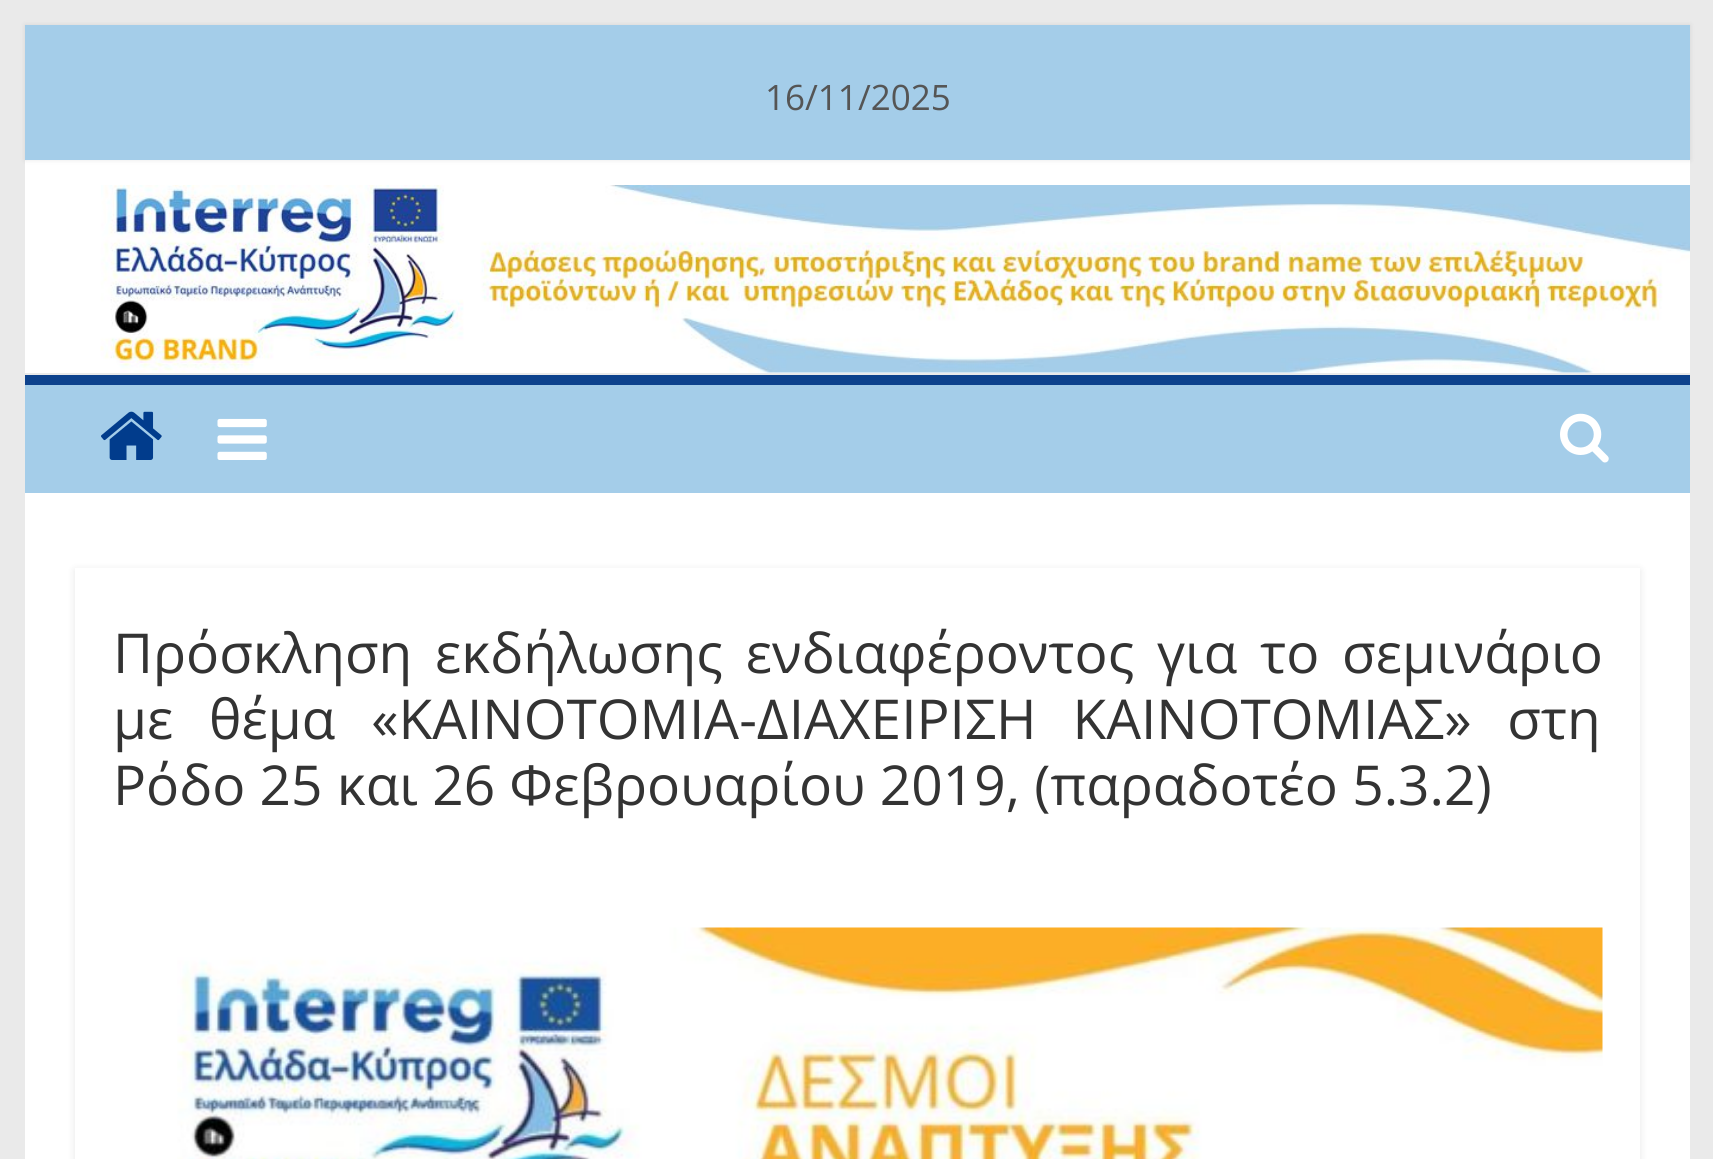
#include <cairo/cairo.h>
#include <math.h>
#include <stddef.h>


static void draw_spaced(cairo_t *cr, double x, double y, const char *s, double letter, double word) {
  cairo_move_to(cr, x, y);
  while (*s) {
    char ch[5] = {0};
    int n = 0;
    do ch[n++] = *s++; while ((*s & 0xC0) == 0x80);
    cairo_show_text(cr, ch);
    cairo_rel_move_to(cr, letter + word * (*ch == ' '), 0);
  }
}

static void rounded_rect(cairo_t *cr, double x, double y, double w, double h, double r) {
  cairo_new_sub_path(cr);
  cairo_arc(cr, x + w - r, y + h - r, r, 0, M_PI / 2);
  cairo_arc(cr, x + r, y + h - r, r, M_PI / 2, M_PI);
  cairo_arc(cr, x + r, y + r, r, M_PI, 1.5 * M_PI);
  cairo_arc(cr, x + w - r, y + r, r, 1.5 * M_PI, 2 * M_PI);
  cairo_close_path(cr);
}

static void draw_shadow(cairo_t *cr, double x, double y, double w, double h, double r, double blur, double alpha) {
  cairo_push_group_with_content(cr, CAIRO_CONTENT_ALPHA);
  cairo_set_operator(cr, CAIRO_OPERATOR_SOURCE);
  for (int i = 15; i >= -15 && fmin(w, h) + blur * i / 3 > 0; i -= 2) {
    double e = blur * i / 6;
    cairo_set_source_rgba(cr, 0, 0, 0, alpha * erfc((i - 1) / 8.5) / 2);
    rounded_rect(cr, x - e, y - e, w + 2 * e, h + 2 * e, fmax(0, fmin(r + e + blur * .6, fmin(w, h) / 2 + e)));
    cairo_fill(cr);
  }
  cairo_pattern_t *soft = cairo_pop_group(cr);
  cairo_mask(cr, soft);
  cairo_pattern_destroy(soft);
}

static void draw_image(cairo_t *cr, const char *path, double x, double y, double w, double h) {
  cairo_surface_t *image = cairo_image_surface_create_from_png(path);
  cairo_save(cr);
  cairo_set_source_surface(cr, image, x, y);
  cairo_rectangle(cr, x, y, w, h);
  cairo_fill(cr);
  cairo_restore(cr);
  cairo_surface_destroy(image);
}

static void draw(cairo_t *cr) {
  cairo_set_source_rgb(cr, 234 / 255.0, 234 / 255.0, 234 / 255.0);
  cairo_paint(cr);
  cairo_set_source_rgb(cr, 1, 1, 1);
  cairo_rectangle(cr, 25, 160, 1665, 213);
  cairo_fill(cr);
  cairo_set_source_rgb(cr, 0, 0, 0);
  draw_shadow(cr, 25, 25, 1665, 135, 0, 2.5, 0.1);
  cairo_set_source_rgb(cr, 164 / 255.0, 205 / 255.0, 233 / 255.0);
  cairo_rectangle(cr, 25, 25, 1665, 135);
  cairo_fill(cr);
  draw_image(cr, "images/1.png", 100, 185, 1590, 188);
  cairo_rectangle(cr, 25, 385, 1665, 108);
  cairo_fill(cr);
  cairo_set_source_rgb(cr, 13 / 255.0, 66 / 255.0, 141 / 255.0);
  cairo_rectangle(cr, 25, 375, 1665, 10);
  cairo_fill(cr);
  draw_image(cr, "images/2.png", 101, 411, 61, 49);
  draw_image(cr, "images/3.png", 217, 418, 50, 42);
  draw_image(cr, "images/4.png", 1560, 413, 49, 50);
  cairo_set_source_rgb(cr, 1, 1, 1);
  cairo_rectangle(cr, 25, 493, 1665, 666);
  cairo_fill(cr);
  cairo_save(cr);
  cairo_set_fill_rule(cr, CAIRO_FILL_RULE_EVEN_ODD);
  cairo_new_path(cr);
  cairo_move_to(cr, 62, 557);
  cairo_line_to(cr, 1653, 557);
  cairo_line_to(cr, 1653, 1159);
  cairo_line_to(cr, 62, 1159);
  cairo_close_path(cr);
  cairo_move_to(cr, 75, 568);
  cairo_line_to(cr, 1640, 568);
  cairo_line_to(cr, 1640, 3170);
  cairo_line_to(cr, 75, 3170);
  cairo_close_path(cr);
  cairo_clip(cr);
  cairo_set_source_rgb(cr, 0, 0, 0);
  draw_shadow(cr, 75, 570, 1565, 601, 0, 4, 0.1);
  cairo_restore(cr);
  draw_image(cr, "images/5.png", 177, 927, 1426, 232);
  cairo_select_font_face(cr, "Open Sans", CAIRO_FONT_SLANT_NORMAL, CAIRO_FONT_WEIGHT_NORMAL);
  cairo_set_font_size(cr, 35);
  cairo_set_source_rgb(cr, 85 / 255.0, 85 / 255.0, 85 / 255.0);
  cairo_move_to(cr, 765, 110);
  cairo_show_text(cr, "16/11/2025");
  cairo_set_font_size(cr, 55);
  cairo_set_source_rgb(cr, 51 / 255.0, 51 / 255.0, 51 / 255.0);
  draw_spaced(cr, 113, 673, "Πρόσκληση εκδήλωσης ενδιαφέροντος για τo σεμινάριο", 0, 8.5);
  draw_spaced(cr, 113, 739, "με θέμα «ΚΑΙΝΟΤΟΜΙΑ-ΔΙΑΧΕΙΡΙΣΗ ΚΑΙΝΟΤΟΜΙΑΣ» στη", 0, 21.5);
  cairo_move_to(cr, 113, 805);
  cairo_show_text(cr, "Ρόδο 25 και 26 Φεβρουαρίου 2019, (παραδοτέο 5.3.2)");
}

int main(void) {
  cairo_surface_t *surface = cairo_image_surface_create(CAIRO_FORMAT_RGB24, 1713, 1159);
  cairo_t *cr = cairo_create(surface);
  cairo_font_options_t *options = cairo_font_options_create();
  cairo_font_options_set_hint_metrics(options, CAIRO_HINT_METRICS_OFF);
  cairo_font_options_set_hint_style(options, CAIRO_HINT_STYLE_NONE);
  cairo_set_font_options(cr, options);
  cairo_set_miter_limit(cr, 4);
  draw(cr);
  cairo_surface_write_to_png(surface, "out.png");
  cairo_font_options_destroy(options);
  cairo_destroy(cr);
  cairo_surface_destroy(surface);
  return 0;
}
